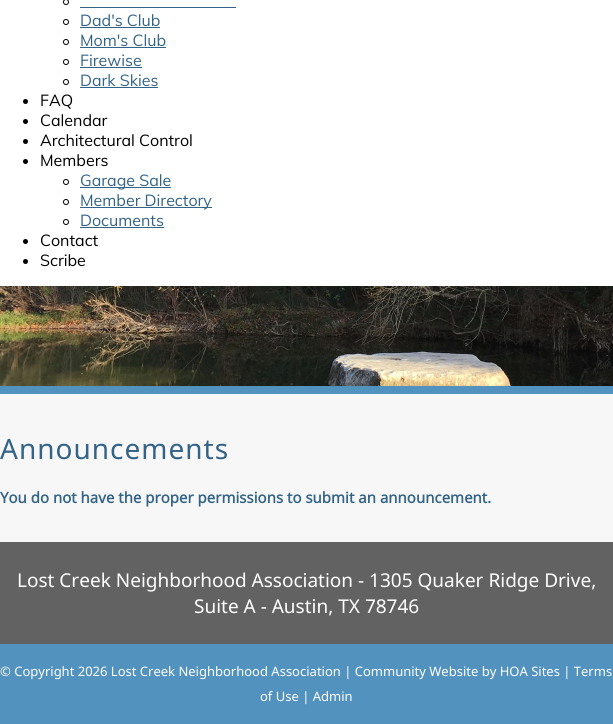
#include <cairo/cairo.h>
#include <math.h>
#include <stddef.h>


static void draw_spaced(cairo_t *cr, double x, double y, const char *s, double letter, double word) {
  cairo_move_to(cr, x, y);
  while (*s) {
    char ch[5] = {0};
    int n = 0;
    do ch[n++] = *s++; while ((*s & 0xC0) == 0x80);
    cairo_show_text(cr, ch);
    cairo_rel_move_to(cr, letter + word * (*ch == ' '), 0);
  }
}

static void draw_image(cairo_t *cr, const char *path, double x, double y, double w, double h) {
  cairo_surface_t *image = cairo_image_surface_create_from_png(path);
  cairo_save(cr);
  cairo_set_source_surface(cr, image, x, y);
  cairo_rectangle(cr, x, y, w, h);
  cairo_fill(cr);
  cairo_restore(cr);
  cairo_surface_destroy(image);
}

static void draw(cairo_t *cr) {
  cairo_set_source_rgb(cr, 1, 1, 1);
  cairo_paint(cr);
  cairo_arc(cr, 66, 2, 2.5, 0, 2 * M_PI);
  cairo_set_source_rgb(cr, 0, 0, 0);
  cairo_set_line_width(cr, 1);
  cairo_stroke(cr);
  cairo_set_source_rgb(cr, 51 / 255.0, 100 / 255.0, 136 / 255.0);
  cairo_rectangle(cr, 80, 7, 156, 1);
  cairo_fill(cr);
  cairo_arc(cr, 66, 22, 2.5, 0, 2 * M_PI);
  cairo_set_source_rgb(cr, 0, 0, 0);
  cairo_stroke(cr);
  cairo_set_source_rgb(cr, 51 / 255.0, 100 / 255.0, 136 / 255.0);
  cairo_rectangle(cr, 80, 27, 80, 1);
  cairo_fill(cr);
  cairo_arc(cr, 66, 42, 2.5, 0, 2 * M_PI);
  cairo_set_source_rgb(cr, 0, 0, 0);
  cairo_stroke(cr);
  cairo_set_source_rgb(cr, 51 / 255.0, 100 / 255.0, 136 / 255.0);
  cairo_rectangle(cr, 80, 47, 86, 1);
  cairo_fill(cr);
  cairo_arc(cr, 66, 62, 2.5, 0, 2 * M_PI);
  cairo_set_source_rgb(cr, 0, 0, 0);
  cairo_stroke(cr);
  cairo_set_source_rgb(cr, 51 / 255.0, 100 / 255.0, 136 / 255.0);
  cairo_rectangle(cr, 80, 67, 62, 1);
  cairo_fill(cr);
  cairo_arc(cr, 66, 82, 2.5, 0, 2 * M_PI);
  cairo_set_source_rgb(cr, 0, 0, 0);
  cairo_stroke(cr);
  cairo_set_source_rgb(cr, 51 / 255.0, 100 / 255.0, 136 / 255.0);
  cairo_rectangle(cr, 80, 87, 78, 1);
  cairo_fill(cr);
  cairo_set_source_rgb(cr, 0, 0, 0);
  cairo_arc(cr, 25.5, 101.5, 2.5, 0, 2 * M_PI);
  cairo_fill(cr);
  cairo_arc(cr, 25.5, 121.5, 2.5, 0, 2 * M_PI);
  cairo_fill(cr);
  cairo_arc(cr, 25.5, 141.5, 2.5, 0, 2 * M_PI);
  cairo_fill(cr);
  cairo_arc(cr, 25.5, 161.5, 2.5, 0, 2 * M_PI);
  cairo_fill(cr);
  cairo_arc(cr, 66, 182, 2.5, 0, 2 * M_PI);
  cairo_stroke(cr);
  cairo_set_source_rgb(cr, 51 / 255.0, 100 / 255.0, 136 / 255.0);
  cairo_rectangle(cr, 80, 187, 91, 1);
  cairo_fill(cr);
  cairo_arc(cr, 66, 202, 2.5, 0, 2 * M_PI);
  cairo_set_source_rgb(cr, 0, 0, 0);
  cairo_stroke(cr);
  cairo_set_source_rgb(cr, 51 / 255.0, 100 / 255.0, 136 / 255.0);
  cairo_rectangle(cr, 80, 207, 132, 1);
  cairo_fill(cr);
  cairo_arc(cr, 66, 222, 2.5, 0, 2 * M_PI);
  cairo_set_source_rgb(cr, 0, 0, 0);
  cairo_stroke(cr);
  cairo_set_source_rgb(cr, 51 / 255.0, 100 / 255.0, 136 / 255.0);
  cairo_rectangle(cr, 80, 227, 84, 1);
  cairo_fill(cr);
  cairo_set_source_rgb(cr, 0, 0, 0);
  cairo_arc(cr, 25.5, 241.5, 2.5, 0, 2 * M_PI);
  cairo_fill(cr);
  cairo_arc(cr, 25.5, 261.5, 2.5, 0, 2 * M_PI);
  cairo_fill(cr);
  cairo_set_source_rgb(cr, 82 / 255.0, 146 / 255.0, 191 / 255.0);
  cairo_rectangle(cr, 0, 386, 613, 8);
  cairo_fill(cr);
  draw_image(cr, "images/1.png", 0, 286, 613, 100);
  cairo_set_source_rgb(cr, 247 / 255.0, 247 / 255.0, 247 / 255.0);
  cairo_rectangle(cr, 0, 394, 613, 148);
  cairo_fill(cr);
  cairo_set_source_rgb(cr, 98 / 255.0, 98 / 255.0, 98 / 255.0);
  cairo_rectangle(cr, 0, 542, 613, 102);
  cairo_fill(cr);
  cairo_set_source_rgb(cr, 82 / 255.0, 146 / 255.0, 191 / 255.0);
  cairo_rectangle(cr, 0, 644, 613, 80);
  cairo_fill(cr);
  cairo_select_font_face(cr, "Muli", CAIRO_FONT_SLANT_NORMAL, CAIRO_FONT_WEIGHT_NORMAL);
  cairo_set_font_size(cr, 16);
  cairo_set_source_rgb(cr, 51 / 255.0, 100 / 255.0, 136 / 255.0);
  cairo_move_to(cr, 80, 26);
  cairo_show_text(cr, "Dad's Club");
  cairo_move_to(cr, 80, 46);
  cairo_show_text(cr, "Mom's Club");
  cairo_move_to(cr, 80, 66);
  cairo_show_text(cr, "Firewise");
  cairo_move_to(cr, 80, 86);
  cairo_show_text(cr, "Dark Skies");
  cairo_set_source_rgb(cr, 0, 0, 0);
  cairo_move_to(cr, 40, 106);
  cairo_show_text(cr, "FAQ");
  cairo_move_to(cr, 40, 126);
  cairo_show_text(cr, "Calendar");
  cairo_move_to(cr, 40, 146);
  cairo_show_text(cr, "Architectural Control");
  cairo_move_to(cr, 40, 166);
  cairo_show_text(cr, "Members");
  cairo_set_source_rgb(cr, 51 / 255.0, 100 / 255.0, 136 / 255.0);
  cairo_move_to(cr, 80, 186);
  cairo_show_text(cr, "Garage Sale");
  cairo_move_to(cr, 80, 206);
  cairo_show_text(cr, "Member Directory");
  cairo_move_to(cr, 80, 226);
  cairo_show_text(cr, "Documents");
  cairo_set_source_rgb(cr, 0, 0, 0);
  cairo_move_to(cr, 40, 246);
  cairo_show_text(cr, "Contact");
  cairo_move_to(cr, 40, 266);
  cairo_show_text(cr, "Scribe");
  cairo_select_font_face(cr, "Noto Sans", CAIRO_FONT_SLANT_NORMAL, CAIRO_FONT_WEIGHT_NORMAL);
  cairo_set_font_size(cr, 28);
  cairo_set_source_rgb(cr, 51 / 255.0, 100 / 255.0, 136 / 255.0);
  draw_spaced(cr, 0, 459, "Announcements", 1, 0);
  cairo_select_font_face(cr, "Noto Sans", CAIRO_FONT_SLANT_NORMAL, CAIRO_FONT_WEIGHT_BOLD);
  cairo_set_font_size(cr, 15);
  cairo_move_to(cr, 0, 503);
  cairo_show_text(cr, "You do not have the proper permissions to submit an announcement.");
  cairo_select_font_face(cr, "Noto Sans", CAIRO_FONT_SLANT_NORMAL, CAIRO_FONT_WEIGHT_NORMAL);
  cairo_set_font_size(cr, 19);
  cairo_set_source_rgb(cr, 1, 1, 1);
  cairo_move_to(cr, 17, 587);
  cairo_show_text(cr, "Lost Creek Neighborhood Association - 1305 Quaker Ridge Drive,");
  cairo_move_to(cr, 194, 613);
  cairo_show_text(cr, "Suite A - Austin, TX 78746");
  cairo_set_font_size(cr, 13);
  cairo_move_to(cr, 0, 676);
  cairo_show_text(cr, "© Copyright 2026 Lost Creek Neighborhood Association | Community Website by HOA Sites | Terms");
  cairo_move_to(cr, 260, 701);
  cairo_show_text(cr, "of Use | Admin");
}

int main(void) {
  cairo_surface_t *surface = cairo_image_surface_create(CAIRO_FORMAT_RGB24, 613, 724);
  cairo_t *cr = cairo_create(surface);
  cairo_font_options_t *options = cairo_font_options_create();
  cairo_font_options_set_hint_metrics(options, CAIRO_HINT_METRICS_OFF);
  cairo_font_options_set_hint_style(options, CAIRO_HINT_STYLE_NONE);
  cairo_set_font_options(cr, options);
  cairo_set_miter_limit(cr, 4);
  draw(cr);
  cairo_surface_write_to_png(surface, "out.png");
  cairo_font_options_destroy(options);
  cairo_destroy(cr);
  cairo_surface_destroy(surface);
  return 0;
}
